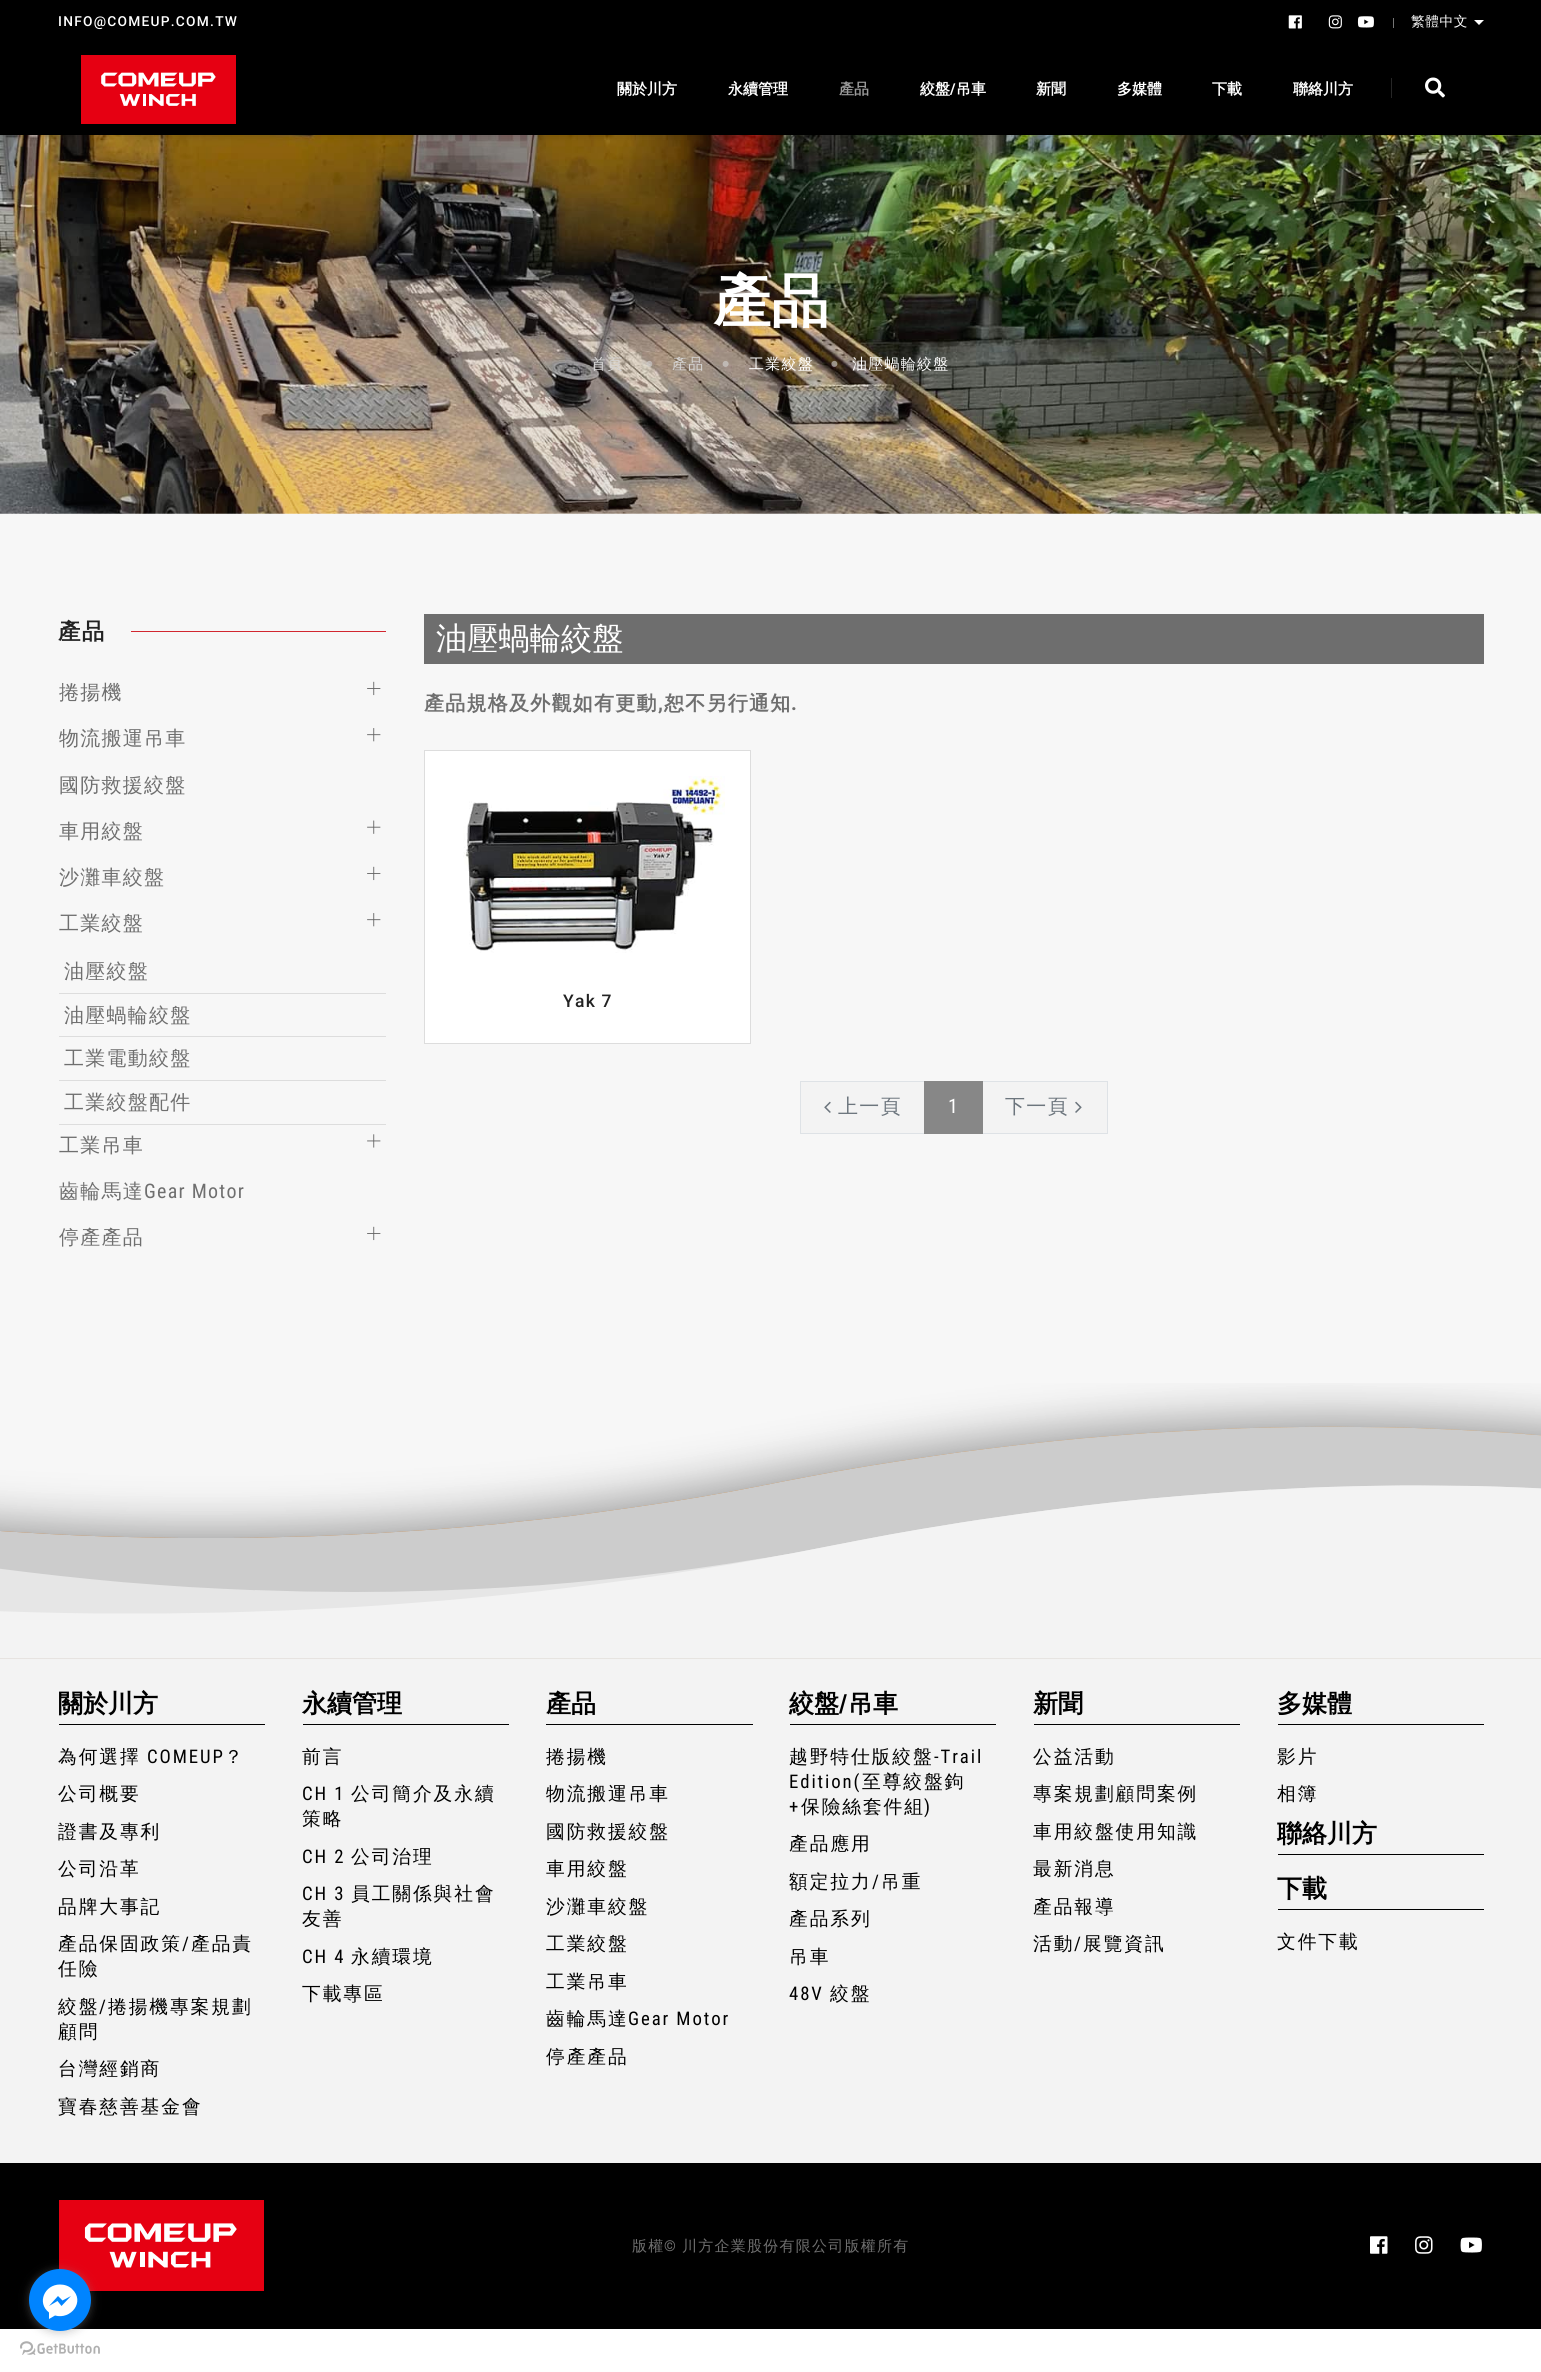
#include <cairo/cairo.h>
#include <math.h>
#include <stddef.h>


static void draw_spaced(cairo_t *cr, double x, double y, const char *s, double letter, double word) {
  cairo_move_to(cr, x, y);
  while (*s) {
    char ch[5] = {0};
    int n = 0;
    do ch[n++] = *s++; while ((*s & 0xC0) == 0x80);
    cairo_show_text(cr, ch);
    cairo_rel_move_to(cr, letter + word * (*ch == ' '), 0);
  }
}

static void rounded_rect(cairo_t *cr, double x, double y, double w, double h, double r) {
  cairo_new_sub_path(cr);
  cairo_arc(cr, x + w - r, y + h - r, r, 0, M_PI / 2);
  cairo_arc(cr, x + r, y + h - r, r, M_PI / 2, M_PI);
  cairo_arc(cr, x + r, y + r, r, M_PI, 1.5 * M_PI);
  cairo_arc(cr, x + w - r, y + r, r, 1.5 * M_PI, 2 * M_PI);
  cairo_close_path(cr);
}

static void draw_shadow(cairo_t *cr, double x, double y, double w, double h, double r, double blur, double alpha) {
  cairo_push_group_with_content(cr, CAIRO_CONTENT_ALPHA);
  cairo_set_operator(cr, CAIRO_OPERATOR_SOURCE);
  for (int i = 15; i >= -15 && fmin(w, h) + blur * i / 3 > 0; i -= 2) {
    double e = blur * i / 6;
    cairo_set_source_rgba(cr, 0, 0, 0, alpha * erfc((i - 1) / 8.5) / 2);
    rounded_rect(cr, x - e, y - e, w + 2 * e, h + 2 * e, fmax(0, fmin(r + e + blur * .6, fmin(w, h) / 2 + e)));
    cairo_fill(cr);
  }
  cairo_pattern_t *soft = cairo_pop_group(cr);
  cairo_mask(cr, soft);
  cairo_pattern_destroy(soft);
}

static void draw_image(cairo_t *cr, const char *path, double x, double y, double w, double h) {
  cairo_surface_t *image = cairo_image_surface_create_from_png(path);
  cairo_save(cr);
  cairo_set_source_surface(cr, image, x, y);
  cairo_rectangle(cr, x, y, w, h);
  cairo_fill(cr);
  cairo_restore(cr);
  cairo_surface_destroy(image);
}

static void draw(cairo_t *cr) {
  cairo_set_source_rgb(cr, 1, 1, 1);
  cairo_paint(cr);
  draw_image(cr, "images/6.png", 0, 135, 1541, 379);
  cairo_set_source_rgb(cr, 0, 0, 0);
  draw_shadow(cr, 13, 61, 1516, 67, 0, 6, 0.6);
  cairo_set_source_rgb(cr, 0, 0, 0);
  cairo_rectangle(cr, 0, 0, 1541, 135);
  cairo_fill(cr);
  draw_image(cr, "images/1.png", 1288, 15, 14, 14);
  draw_image(cr, "images/2.png", 1328, 15, 14, 14);
  draw_image(cr, "images/3.png", 1357, 16, 17, 12);
  cairo_set_source_rgb(cr, 117 / 255.0, 117 / 255.0, 117 / 255.0);
  cairo_rectangle(cr, 1393, 18, 1, 10);
  cairo_fill(cr);
  cairo_set_source_rgb(cr, 1, 1, 1);
  cairo_new_path(cr);
  cairo_move_to(cr, 1474, 20);
  cairo_line_to(cr, 1484, 20);
  cairo_line_to(cr, 1479, 25);
  cairo_close_path(cr);
  cairo_fill(cr);
  draw_image(cr, "images/4.png", 81, 55, 155, 69);
  cairo_set_source_rgb(cr, 38 / 255.0, 38 / 255.0, 38 / 255.0);
  cairo_rectangle(cr, 1391, 78, 1, 20);
  cairo_fill(cr);
  draw_image(cr, "images/5.png", 1425, 77, 20, 21);
  draw_image(cr, "images/7.png", 646, 361, 7, 6);
  draw_image(cr, "images/8.png", 722, 361, 7, 6);
  draw_image(cr, "images/9.png", 831, 360, 7, 7);
  cairo_set_source_rgb(cr, 247 / 255.0, 247 / 255.0, 247 / 255.0);
  cairo_rectangle(cr, 0, 514, 1541, 1024);
  cairo_fill(cr);
  cairo_set_source_rgb(cr, 210 / 255.0, 39 / 255.0, 48 / 255.0);
  cairo_rectangle(cr, 131, 631, 255, 1);
  cairo_fill(cr);
  draw_image(cr, "images/10.png", 367, 681, 14, 15);
  draw_image(cr, "images/11.png", 367, 728, 14, 14);
  draw_image(cr, "images/12.png", 367, 820, 14, 14);
  draw_image(cr, "images/10.png", 367, 866, 14, 15);
  draw_image(cr, "images/11.png", 367, 913, 14, 14);
  cairo_set_source_rgb(cr, 221 / 255.0, 221 / 255.0, 221 / 255.0);
  cairo_rectangle(cr, 59, 993, 327, 1);
  cairo_fill(cr);
  cairo_rectangle(cr, 59, 1036, 327, 1);
  cairo_fill(cr);
  cairo_rectangle(cr, 59, 1080, 327, 1);
  cairo_fill(cr);
  cairo_rectangle(cr, 59, 1124, 327, 1);
  cairo_fill(cr);
  draw_image(cr, "images/13.png", 367, 1134, 14, 14);
  draw_image(cr, "images/10.png", 367, 1226, 14, 15);
  cairo_set_source_rgb(cr, 110 / 255.0, 110 / 255.0, 110 / 255.0);
  cairo_rectangle(cr, 424, 614, 1060, 50);
  cairo_fill(cr);
  cairo_set_source_rgb(cr, 1, 1, 1);
  cairo_rectangle(cr, 424.5, 750.5, 326, 293);
  cairo_fill_preserve(cr);
  cairo_set_source_rgb(cr, 221 / 255.0, 221 / 255.0, 221 / 255.0);
  cairo_set_line_width(cr, 1);
  cairo_stroke(cr);
  draw_image(cr, "images/14.png", 463, 776, 262, 177);
  cairo_set_source_rgb(cr, 243 / 255.0, 243 / 255.0, 243 / 255.0);
  cairo_rectangle(cr, 800.5, 1081.5, 124, 52);
  cairo_fill_preserve(cr);
  cairo_set_source_rgb(cr, 222 / 255.0, 226 / 255.0, 230 / 255.0);
  cairo_stroke(cr);
  draw_image(cr, "images/15.png", 824, 1101, 7, 12);
  cairo_set_source_rgb(cr, 243 / 255.0, 243 / 255.0, 243 / 255.0);
  cairo_rectangle(cr, 983, 1082, 124, 51);
  cairo_fill(cr);
  cairo_rectangle(cr, 981.5, 1081.5, 126, 52);
  cairo_set_source_rgb(cr, 222 / 255.0, 226 / 255.0, 230 / 255.0);
  cairo_stroke(cr);
  cairo_set_source_rgb(cr, 135 / 255.0, 135 / 255.0, 135 / 255.0);
  cairo_rectangle(cr, 924, 1081, 59, 53);
  cairo_fill(cr);
  draw_image(cr, "images/16.png", 1075, 1101, 7, 12);
  cairo_set_source_rgb(cr, 243 / 255.0, 243 / 255.0, 243 / 255.0);
  cairo_rectangle(cr, 0, 1658, 1541, 505);
  cairo_fill(cr);
  draw_image(cr, "images/17.png", 0, 1383, 1541, 276);
  cairo_set_source_rgb(cr, 0, 0, 0);
  cairo_rectangle(cr, 59, 1724, 206, 1);
  cairo_fill(cr);
  cairo_rectangle(cr, 303, 1724, 206, 1);
  cairo_fill(cr);
  cairo_rectangle(cr, 546, 1724, 207, 1);
  cairo_fill(cr);
  cairo_rectangle(cr, 790, 1724, 206, 1);
  cairo_fill(cr);
  cairo_rectangle(cr, 1034, 1724, 206, 1);
  cairo_fill(cr);
  cairo_rectangle(cr, 1278, 1724, 206, 1);
  cairo_fill(cr);
  cairo_rectangle(cr, 1278, 1854, 206, 1);
  cairo_fill(cr);
  cairo_rectangle(cr, 1278, 1909, 206, 1);
  cairo_fill(cr);
  cairo_rectangle(cr, 0, 2163, 1541, 166);
  cairo_fill(cr);
  draw_image(cr, "images/18.png", 59, 2200, 205, 91);
  draw_image(cr, "images/19.png", 1370, 2236, 18, 18);
  draw_image(cr, "images/20.png", 1415, 2236, 18, 18);
  draw_image(cr, "images/21.png", 1460, 2237, 22, 16);
  draw_image(cr, "images/22.png", 20, 2341, 80, 14);
  cairo_set_source_rgb(cr, 136 / 255.0, 136 / 255.0, 136 / 255.0);
  draw_shadow(cr, 29, 2270, 62, 63, 31, 4.5, 0.4);
  cairo_set_source_rgb(cr, 0, 132 / 255.0, 1);
  cairo_arc(cr, 60, 2300, 31, 0, 2 * M_PI);
  cairo_fill(cr);
  cairo_set_source_rgb(cr, 1, 1, 1);
  cairo_new_path(cr);
  cairo_move_to(cr, 60, 2284.5);
  cairo_curve_to(cr, 44.5, 2284.5, 36.5, 2303, 49, 2312.5);
  cairo_line_to(cr, 49, 2319);
  cairo_line_to(cr, 55, 2315.5);
  cairo_curve_to(cr, 71, 2320, 85.5, 2301.5, 72, 2289);
  cairo_curve_to(cr, 69, 2286, 64.5, 2284.5, 60, 2284.5);
  cairo_close_path(cr);
  cairo_move_to(cr, 61.5, 2306);
  cairo_line_to(cr, 57.5, 2301);
  cairo_line_to(cr, 49, 2306);
  cairo_line_to(cr, 58, 2296);
  cairo_line_to(cr, 62.5, 2300.5);
  cairo_line_to(cr, 71, 2296);
  cairo_close_path(cr);
  cairo_fill(cr);
  cairo_select_font_face(cr, "Roboto Medium", CAIRO_FONT_SLANT_NORMAL, CAIRO_FONT_WEIGHT_NORMAL);
  cairo_set_font_size(cr, 13.75);
  draw_spaced(cr, 58, 26, "INFO@COMEUP.COM.TW", 1.25, 0);
  cairo_select_font_face(cr, "WenQuanYi Zen Hei Medium", CAIRO_FONT_SLANT_NORMAL, CAIRO_FONT_WEIGHT_NORMAL);
  draw_spaced(cr, 1411, 26, "繁體中文", 0.5, 0);
  cairo_select_font_face(cr, "WenQuanYi Zen Hei", CAIRO_FONT_SLANT_NORMAL, CAIRO_FONT_WEIGHT_BOLD);
  cairo_set_font_size(cr, 15);
  cairo_move_to(cr, 617, 94);
  cairo_show_text(cr, "關於川方");
  cairo_move_to(cr, 728, 94);
  cairo_show_text(cr, "永續管理");
  cairo_set_source_rgb(cr, 153 / 255.0, 153 / 255.0, 153 / 255.0);
  cairo_move_to(cr, 839, 94);
  cairo_show_text(cr, "產品");
  cairo_set_source_rgb(cr, 1, 1, 1);
  cairo_move_to(cr, 920, 94);
  cairo_show_text(cr, "絞盤");
  cairo_select_font_face(cr, "Roboto", CAIRO_FONT_SLANT_NORMAL, CAIRO_FONT_WEIGHT_BOLD);
  cairo_move_to(cr, 950, 94);
  cairo_show_text(cr, "/");
  cairo_select_font_face(cr, "WenQuanYi Zen Hei", CAIRO_FONT_SLANT_NORMAL, CAIRO_FONT_WEIGHT_BOLD);
  cairo_move_to(cr, 956, 94);
  cairo_show_text(cr, "吊車");
  cairo_move_to(cr, 1036, 94);
  cairo_show_text(cr, "新聞");
  cairo_move_to(cr, 1117, 94);
  cairo_show_text(cr, "多媒體");
  cairo_move_to(cr, 1212, 94);
  cairo_show_text(cr, "下載");
  cairo_move_to(cr, 1293, 94);
  cairo_show_text(cr, "聯絡川方");
  cairo_set_font_size(cr, 58);
  cairo_move_to(cr, 713, 321);
  cairo_show_text(cr, "產品");
  cairo_select_font_face(cr, "WenQuanYi Zen Hei Medium", CAIRO_FONT_SLANT_NORMAL, CAIRO_FONT_WEIGHT_NORMAL);
  cairo_set_font_size(cr, 15);
  cairo_set_source_rgb(cr, 214 / 255.0, 213 / 255.0, 213 / 255.0);
  draw_spaced(cr, 591, 369, "首頁", 1.25, 0);
  draw_spaced(cr, 672, 369, "產品", 1.25, 0);
  cairo_set_source_rgb(cr, 1, 1, 1);
  draw_spaced(cr, 749, 369, "工業絞盤", 1.25, 0);
  draw_spaced(cr, 852, 369, "油壓蝸輪絞盤", 1.25, 0);
  cairo_select_font_face(cr, "WenQuanYi Zen Hei", CAIRO_FONT_SLANT_NORMAL, CAIRO_FONT_WEIGHT_BOLD);
  cairo_set_font_size(cr, 22.5);
  cairo_set_source_rgb(cr, 35 / 255.0, 35 / 255.0, 35 / 255.0);
  draw_spaced(cr, 58, 639, "產品", 1.25, 0);
  cairo_select_font_face(cr, "WenQuanYi Zen Hei Medium", CAIRO_FONT_SLANT_NORMAL, CAIRO_FONT_WEIGHT_NORMAL);
  cairo_set_font_size(cr, 20);
  cairo_set_source_rgb(cr, 111 / 255.0, 111 / 255.0, 111 / 255.0);
  draw_spaced(cr, 59, 699, "捲揚機", 1.25, 0);
  draw_spaced(cr, 59, 745, "物流搬運吊車", 1.25, 0);
  draw_spaced(cr, 59, 792, "國防救援絞盤", 1.25, 0);
  draw_spaced(cr, 59, 838, "車用絞盤", 1.25, 0);
  draw_spaced(cr, 59, 884, "沙灘車絞盤", 1.25, 0);
  draw_spaced(cr, 59, 930, "工業絞盤", 1.25, 0);
  draw_spaced(cr, 64, 978, "油壓絞盤", 1.25, 0);
  draw_spaced(cr, 64, 1022, "油壓蝸輪絞盤", 1.25, 0);
  draw_spaced(cr, 64, 1065, "工業電動絞盤", 1.25, 0);
  draw_spaced(cr, 64, 1109, "工業絞盤配件", 1.25, 0);
  draw_spaced(cr, 59, 1152, "工業吊車", 1.25, 0);
  draw_spaced(cr, 59, 1198, "齒輪馬達", 1.25, 0);
  cairo_select_font_face(cr, "Roboto Condensed", CAIRO_FONT_SLANT_NORMAL, CAIRO_FONT_WEIGHT_NORMAL);
  draw_spaced(cr, 144, 1198, "Gear Motor", 1.25, 0);
  cairo_select_font_face(cr, "WenQuanYi Zen Hei Medium", CAIRO_FONT_SLANT_NORMAL, CAIRO_FONT_WEIGHT_NORMAL);
  draw_spaced(cr, 59, 1244, "停產產品", 1.25, 0);
  cairo_set_font_size(cr, 31.25);
  cairo_set_source_rgb(cr, 1, 1, 1);
  cairo_move_to(cr, 436, 649);
  cairo_show_text(cr, "油壓蝸輪絞盤");
  cairo_select_font_face(cr, "WenQuanYi Zen Hei", CAIRO_FONT_SLANT_NORMAL, CAIRO_FONT_WEIGHT_BOLD);
  cairo_set_font_size(cr, 20);
  cairo_set_source_rgb(cr, 111 / 255.0, 111 / 255.0, 111 / 255.0);
  draw_spaced(cr, 424, 710, "產品規格及外觀如有更動", 1.25, 0);
  cairo_select_font_face(cr, "Roboto", CAIRO_FONT_SLANT_NORMAL, CAIRO_FONT_WEIGHT_BOLD);
  draw_spaced(cr, 658, 710, ",", 1.25, 0);
  cairo_select_font_face(cr, "WenQuanYi Zen Hei", CAIRO_FONT_SLANT_NORMAL, CAIRO_FONT_WEIGHT_BOLD);
  draw_spaced(cr, 664, 710, "恕不另行通知", 1.25, 0);
  cairo_select_font_face(cr, "Roboto", CAIRO_FONT_SLANT_NORMAL, CAIRO_FONT_WEIGHT_BOLD);
  draw_spaced(cr, 791, 710, ".", 1.25, 0);
  cairo_select_font_face(cr, "Roboto Medium", CAIRO_FONT_SLANT_NORMAL, CAIRO_FONT_WEIGHT_NORMAL);
  cairo_set_font_size(cr, 17.5);
  cairo_set_source_rgb(cr, 35 / 255.0, 35 / 255.0, 35 / 255.0);
  draw_spaced(cr, 563, 1007, "Yak 7", 1.25, 0);
  cairo_select_font_face(cr, "WenQuanYi Zen Hei Medium", CAIRO_FONT_SLANT_NORMAL, CAIRO_FONT_WEIGHT_NORMAL);
  cairo_set_font_size(cr, 20);
  cairo_set_source_rgb(cr, 108 / 255.0, 117 / 255.0, 125 / 255.0);
  draw_spaced(cr, 838, 1113, "上一頁", 1.25, 0);
  cairo_select_font_face(cr, "Roboto Condensed", CAIRO_FONT_SLANT_NORMAL, CAIRO_FONT_WEIGHT_NORMAL);
  cairo_set_source_rgb(cr, 1, 1, 1);
  draw_spaced(cr, 948, 1113, "1", 1.25, 0);
  cairo_select_font_face(cr, "WenQuanYi Zen Hei Medium", CAIRO_FONT_SLANT_NORMAL, CAIRO_FONT_WEIGHT_NORMAL);
  cairo_set_source_rgb(cr, 108 / 255.0, 117 / 255.0, 125 / 255.0);
  draw_spaced(cr, 1005, 1113, "下一頁", 1.25, 0);
  cairo_select_font_face(cr, "WenQuanYi Zen Hei", CAIRO_FONT_SLANT_NORMAL, CAIRO_FONT_WEIGHT_BOLD);
  cairo_set_font_size(cr, 25);
  cairo_set_source_rgb(cr, 0, 0, 0);
  cairo_move_to(cr, 58, 1712);
  cairo_show_text(cr, "關於川方");
  cairo_select_font_face(cr, "WenQuanYi Zen Hei Medium", CAIRO_FONT_SLANT_NORMAL, CAIRO_FONT_WEIGHT_NORMAL);
  cairo_set_font_size(cr, 18.75);
  draw_spaced(cr, 58, 1763, "為何選擇", 1.9, 0);
  cairo_select_font_face(cr, "Roboto Condensed", CAIRO_FONT_SLANT_NORMAL, CAIRO_FONT_WEIGHT_NORMAL);
  draw_spaced(cr, 147, 1763, "COMEUP", 1.9, 0);
  cairo_select_font_face(cr, "WenQuanYi Zen Hei Medium", CAIRO_FONT_SLANT_NORMAL, CAIRO_FONT_WEIGHT_NORMAL);
  draw_spaced(cr, 224, 1763, "？", 1.9, 0);
  draw_spaced(cr, 58, 1800, "公司概要", 1.9, 0);
  draw_spaced(cr, 58, 1838, "證書及專利", 1.9, 0);
  draw_spaced(cr, 58, 1875, "公司沿革", 1.9, 0);
  draw_spaced(cr, 58, 1913, "品牌大事記", 1.9, 0);
  draw_spaced(cr, 58, 1950, "產品保固政策", 1.9, 0);
  cairo_select_font_face(cr, "Roboto Condensed", CAIRO_FONT_SLANT_NORMAL, CAIRO_FONT_WEIGHT_NORMAL);
  draw_spaced(cr, 182, 1950, "/", 1.9, 0);
  cairo_select_font_face(cr, "WenQuanYi Zen Hei Medium", CAIRO_FONT_SLANT_NORMAL, CAIRO_FONT_WEIGHT_NORMAL);
  draw_spaced(cr, 191, 1950, "產品責", 1.9, 0);
  draw_spaced(cr, 58, 1975, "任險", 1.9, 0);
  draw_spaced(cr, 58, 2013, "絞盤", 1.9, 0);
  cairo_select_font_face(cr, "Roboto Condensed", CAIRO_FONT_SLANT_NORMAL, CAIRO_FONT_WEIGHT_NORMAL);
  draw_spaced(cr, 99, 2013, "/", 1.9, 0);
  cairo_select_font_face(cr, "WenQuanYi Zen Hei Medium", CAIRO_FONT_SLANT_NORMAL, CAIRO_FONT_WEIGHT_NORMAL);
  draw_spaced(cr, 108, 2013, "捲揚機專案規劃", 1.9, 0);
  draw_spaced(cr, 58, 2038, "顧問", 1.9, 0);
  draw_spaced(cr, 58, 2075, "台灣經銷商", 1.9, 0);
  draw_spaced(cr, 58, 2113, "寶春慈善基金會", 1.9, 0);
  cairo_select_font_face(cr, "WenQuanYi Zen Hei", CAIRO_FONT_SLANT_NORMAL, CAIRO_FONT_WEIGHT_BOLD);
  cairo_set_font_size(cr, 25);
  cairo_move_to(cr, 302, 1712);
  cairo_show_text(cr, "永續管理");
  cairo_select_font_face(cr, "WenQuanYi Zen Hei Medium", CAIRO_FONT_SLANT_NORMAL, CAIRO_FONT_WEIGHT_NORMAL);
  cairo_set_font_size(cr, 18.75);
  draw_spaced(cr, 302, 1763, "前言", 1.9, 0);
  cairo_select_font_face(cr, "Roboto Condensed", CAIRO_FONT_SLANT_NORMAL, CAIRO_FONT_WEIGHT_NORMAL);
  draw_spaced(cr, 302, 1800, "CH 1", 1.9, 0);
  cairo_select_font_face(cr, "WenQuanYi Zen Hei Medium", CAIRO_FONT_SLANT_NORMAL, CAIRO_FONT_WEIGHT_NORMAL);
  draw_spaced(cr, 351, 1800, "公司簡介及永續", 1.9, 0);
  draw_spaced(cr, 302, 1825, "策略", 1.9, 0);
  cairo_select_font_face(cr, "Roboto Condensed", CAIRO_FONT_SLANT_NORMAL, CAIRO_FONT_WEIGHT_NORMAL);
  draw_spaced(cr, 302, 1863, "CH 2", 1.9, 0);
  cairo_select_font_face(cr, "WenQuanYi Zen Hei Medium", CAIRO_FONT_SLANT_NORMAL, CAIRO_FONT_WEIGHT_NORMAL);
  draw_spaced(cr, 351, 1863, "公司治理", 1.9, 0);
  cairo_select_font_face(cr, "Roboto Condensed", CAIRO_FONT_SLANT_NORMAL, CAIRO_FONT_WEIGHT_NORMAL);
  draw_spaced(cr, 302, 1900, "CH 3", 1.9, 0);
  cairo_select_font_face(cr, "WenQuanYi Zen Hei Medium", CAIRO_FONT_SLANT_NORMAL, CAIRO_FONT_WEIGHT_NORMAL);
  draw_spaced(cr, 351, 1900, "員工關係與社會", 1.9, 0);
  draw_spaced(cr, 302, 1925, "友善", 1.9, 0);
  cairo_select_font_face(cr, "Roboto Condensed", CAIRO_FONT_SLANT_NORMAL, CAIRO_FONT_WEIGHT_NORMAL);
  draw_spaced(cr, 302, 1963, "CH 4", 1.9, 0);
  cairo_select_font_face(cr, "WenQuanYi Zen Hei Medium", CAIRO_FONT_SLANT_NORMAL, CAIRO_FONT_WEIGHT_NORMAL);
  draw_spaced(cr, 351, 1963, "永續環境", 1.9, 0);
  draw_spaced(cr, 302, 2000, "下載專區", 1.9, 0);
  cairo_select_font_face(cr, "WenQuanYi Zen Hei", CAIRO_FONT_SLANT_NORMAL, CAIRO_FONT_WEIGHT_BOLD);
  cairo_set_font_size(cr, 25);
  cairo_move_to(cr, 546, 1712);
  cairo_show_text(cr, "產品");
  cairo_select_font_face(cr, "WenQuanYi Zen Hei Medium", CAIRO_FONT_SLANT_NORMAL, CAIRO_FONT_WEIGHT_NORMAL);
  cairo_set_font_size(cr, 18.75);
  draw_spaced(cr, 546, 1763, "捲揚機", 1.9, 0);
  draw_spaced(cr, 546, 1800, "物流搬運吊車", 1.9, 0);
  draw_spaced(cr, 546, 1838, "國防救援絞盤", 1.9, 0);
  draw_spaced(cr, 546, 1875, "車用絞盤", 1.9, 0);
  draw_spaced(cr, 546, 1913, "沙灘車絞盤", 1.9, 0);
  draw_spaced(cr, 546, 1950, "工業絞盤", 1.9, 0);
  draw_spaced(cr, 546, 1988, "工業吊車", 1.9, 0);
  draw_spaced(cr, 546, 2025, "齒輪馬達", 1.9, 0);
  cairo_select_font_face(cr, "Roboto Condensed", CAIRO_FONT_SLANT_NORMAL, CAIRO_FONT_WEIGHT_NORMAL);
  draw_spaced(cr, 628, 2025, "Gear Motor", 1.9, 0);
  cairo_select_font_face(cr, "WenQuanYi Zen Hei Medium", CAIRO_FONT_SLANT_NORMAL, CAIRO_FONT_WEIGHT_NORMAL);
  draw_spaced(cr, 546, 2063, "停產產品", 1.9, 0);
  cairo_select_font_face(cr, "WenQuanYi Zen Hei", CAIRO_FONT_SLANT_NORMAL, CAIRO_FONT_WEIGHT_BOLD);
  cairo_set_font_size(cr, 25);
  cairo_move_to(cr, 789, 1712);
  cairo_show_text(cr, "絞盤");
  cairo_select_font_face(cr, "Roboto Condensed", CAIRO_FONT_SLANT_NORMAL, CAIRO_FONT_WEIGHT_BOLD);
  cairo_move_to(cr, 839, 1712);
  cairo_show_text(cr, "/");
  cairo_select_font_face(cr, "WenQuanYi Zen Hei", CAIRO_FONT_SLANT_NORMAL, CAIRO_FONT_WEIGHT_BOLD);
  cairo_move_to(cr, 848, 1712);
  cairo_show_text(cr, "吊車");
  cairo_select_font_face(cr, "WenQuanYi Zen Hei Medium", CAIRO_FONT_SLANT_NORMAL, CAIRO_FONT_WEIGHT_NORMAL);
  cairo_set_font_size(cr, 18.75);
  draw_spaced(cr, 789, 1763, "越野特仕版絞盤", 1.9, 0);
  cairo_select_font_face(cr, "Roboto Condensed", CAIRO_FONT_SLANT_NORMAL, CAIRO_FONT_WEIGHT_NORMAL);
  draw_spaced(cr, 934, 1763, "-Trail", 1.9, 0);
  draw_spaced(cr, 789, 1788, "Edition(", 1.9, 0);
  cairo_select_font_face(cr, "WenQuanYi Zen Hei Medium", CAIRO_FONT_SLANT_NORMAL, CAIRO_FONT_WEIGHT_NORMAL);
  draw_spaced(cr, 862, 1788, "至尊絞盤鉤", 1.9, 0);
  cairo_select_font_face(cr, "Roboto Condensed", CAIRO_FONT_SLANT_NORMAL, CAIRO_FONT_WEIGHT_NORMAL);
  draw_spaced(cr, 789, 1813, "+", 1.9, 0);
  cairo_select_font_face(cr, "WenQuanYi Zen Hei Medium", CAIRO_FONT_SLANT_NORMAL, CAIRO_FONT_WEIGHT_NORMAL);
  draw_spaced(cr, 801, 1813, "保險絲套件組", 1.9, 0);
  cairo_select_font_face(cr, "Roboto Condensed", CAIRO_FONT_SLANT_NORMAL, CAIRO_FONT_WEIGHT_NORMAL);
  draw_spaced(cr, 924, 1813, ")", 1.9, 0);
  cairo_select_font_face(cr, "WenQuanYi Zen Hei Medium", CAIRO_FONT_SLANT_NORMAL, CAIRO_FONT_WEIGHT_NORMAL);
  draw_spaced(cr, 789, 1850, "產品應用", 1.9, 0);
  draw_spaced(cr, 789, 1888, "額定拉力", 1.9, 0);
  cairo_select_font_face(cr, "Roboto Condensed", CAIRO_FONT_SLANT_NORMAL, CAIRO_FONT_WEIGHT_NORMAL);
  draw_spaced(cr, 872, 1888, "/", 1.9, 0);
  cairo_select_font_face(cr, "WenQuanYi Zen Hei Medium", CAIRO_FONT_SLANT_NORMAL, CAIRO_FONT_WEIGHT_NORMAL);
  draw_spaced(cr, 881, 1888, "吊重", 1.9, 0);
  draw_spaced(cr, 789, 1925, "產品系列", 1.9, 0);
  draw_spaced(cr, 789, 1963, "吊車", 1.9, 0);
  cairo_select_font_face(cr, "Roboto Condensed", CAIRO_FONT_SLANT_NORMAL, CAIRO_FONT_WEIGHT_NORMAL);
  draw_spaced(cr, 789, 2000, "48V", 1.9, 0);
  cairo_select_font_face(cr, "WenQuanYi Zen Hei Medium", CAIRO_FONT_SLANT_NORMAL, CAIRO_FONT_WEIGHT_NORMAL);
  draw_spaced(cr, 830, 2000, "絞盤", 1.9, 0);
  cairo_select_font_face(cr, "WenQuanYi Zen Hei", CAIRO_FONT_SLANT_NORMAL, CAIRO_FONT_WEIGHT_BOLD);
  cairo_set_font_size(cr, 25);
  cairo_move_to(cr, 1033, 1712);
  cairo_show_text(cr, "新聞");
  cairo_select_font_face(cr, "WenQuanYi Zen Hei Medium", CAIRO_FONT_SLANT_NORMAL, CAIRO_FONT_WEIGHT_NORMAL);
  cairo_set_font_size(cr, 18.75);
  draw_spaced(cr, 1033, 1763, "公益活動", 1.9, 0);
  draw_spaced(cr, 1033, 1800, "專案規劃顧問案例", 1.9, 0);
  draw_spaced(cr, 1033, 1838, "車用絞盤使用知識", 1.9, 0);
  draw_spaced(cr, 1033, 1875, "最新消息", 1.9, 0);
  draw_spaced(cr, 1033, 1913, "產品報導", 1.9, 0);
  draw_spaced(cr, 1033, 1950, "活動", 1.9, 0);
  cairo_select_font_face(cr, "Roboto Condensed", CAIRO_FONT_SLANT_NORMAL, CAIRO_FONT_WEIGHT_NORMAL);
  draw_spaced(cr, 1074, 1950, "/", 1.9, 0);
  cairo_select_font_face(cr, "WenQuanYi Zen Hei Medium", CAIRO_FONT_SLANT_NORMAL, CAIRO_FONT_WEIGHT_NORMAL);
  draw_spaced(cr, 1083, 1950, "展覽資訊", 1.9, 0);
  cairo_select_font_face(cr, "WenQuanYi Zen Hei", CAIRO_FONT_SLANT_NORMAL, CAIRO_FONT_WEIGHT_BOLD);
  cairo_set_font_size(cr, 25);
  cairo_move_to(cr, 1277, 1712);
  cairo_show_text(cr, "多媒體");
  cairo_select_font_face(cr, "WenQuanYi Zen Hei Medium", CAIRO_FONT_SLANT_NORMAL, CAIRO_FONT_WEIGHT_NORMAL);
  cairo_set_font_size(cr, 18.75);
  draw_spaced(cr, 1277, 1763, "影片", 1.9, 0);
  draw_spaced(cr, 1277, 1800, "相簿", 1.9, 0);
  cairo_select_font_face(cr, "WenQuanYi Zen Hei", CAIRO_FONT_SLANT_NORMAL, CAIRO_FONT_WEIGHT_BOLD);
  cairo_set_font_size(cr, 25);
  cairo_move_to(cr, 1277, 1842);
  cairo_show_text(cr, "聯絡川方");
  cairo_move_to(cr, 1277, 1897);
  cairo_show_text(cr, "下載");
  cairo_select_font_face(cr, "WenQuanYi Zen Hei Medium", CAIRO_FONT_SLANT_NORMAL, CAIRO_FONT_WEIGHT_NORMAL);
  cairo_set_font_size(cr, 18.75);
  draw_spaced(cr, 1277, 1948, "文件下載", 1.9, 0);
  cairo_set_font_size(cr, 15);
  cairo_set_source_rgb(cr, 111 / 255.0, 111 / 255.0, 111 / 255.0);
  draw_spaced(cr, 632, 2251, "版權", 1.25, 0);
  cairo_select_font_face(cr, "Roboto Medium", CAIRO_FONT_SLANT_NORMAL, CAIRO_FONT_WEIGHT_NORMAL);
  draw_spaced(cr, 664, 2251, "©", 1.25, 0);
  cairo_select_font_face(cr, "WenQuanYi Zen Hei Medium", CAIRO_FONT_SLANT_NORMAL, CAIRO_FONT_WEIGHT_NORMAL);
  draw_spaced(cr, 682, 2251, "川方企業股份有限公司版權所有", 1.25, 0);
}

int main(void) {
  cairo_surface_t *surface = cairo_image_surface_create(CAIRO_FORMAT_RGB24, 1541, 2372);
  cairo_t *cr = cairo_create(surface);
  cairo_font_options_t *options = cairo_font_options_create();
  cairo_font_options_set_hint_metrics(options, CAIRO_HINT_METRICS_OFF);
  cairo_font_options_set_hint_style(options, CAIRO_HINT_STYLE_NONE);
  cairo_set_font_options(cr, options);
  cairo_set_miter_limit(cr, 4);
  draw(cr);
  cairo_surface_write_to_png(surface, "out.png");
  cairo_font_options_destroy(options);
  cairo_destroy(cr);
  cairo_surface_destroy(surface);
  return 0;
}
